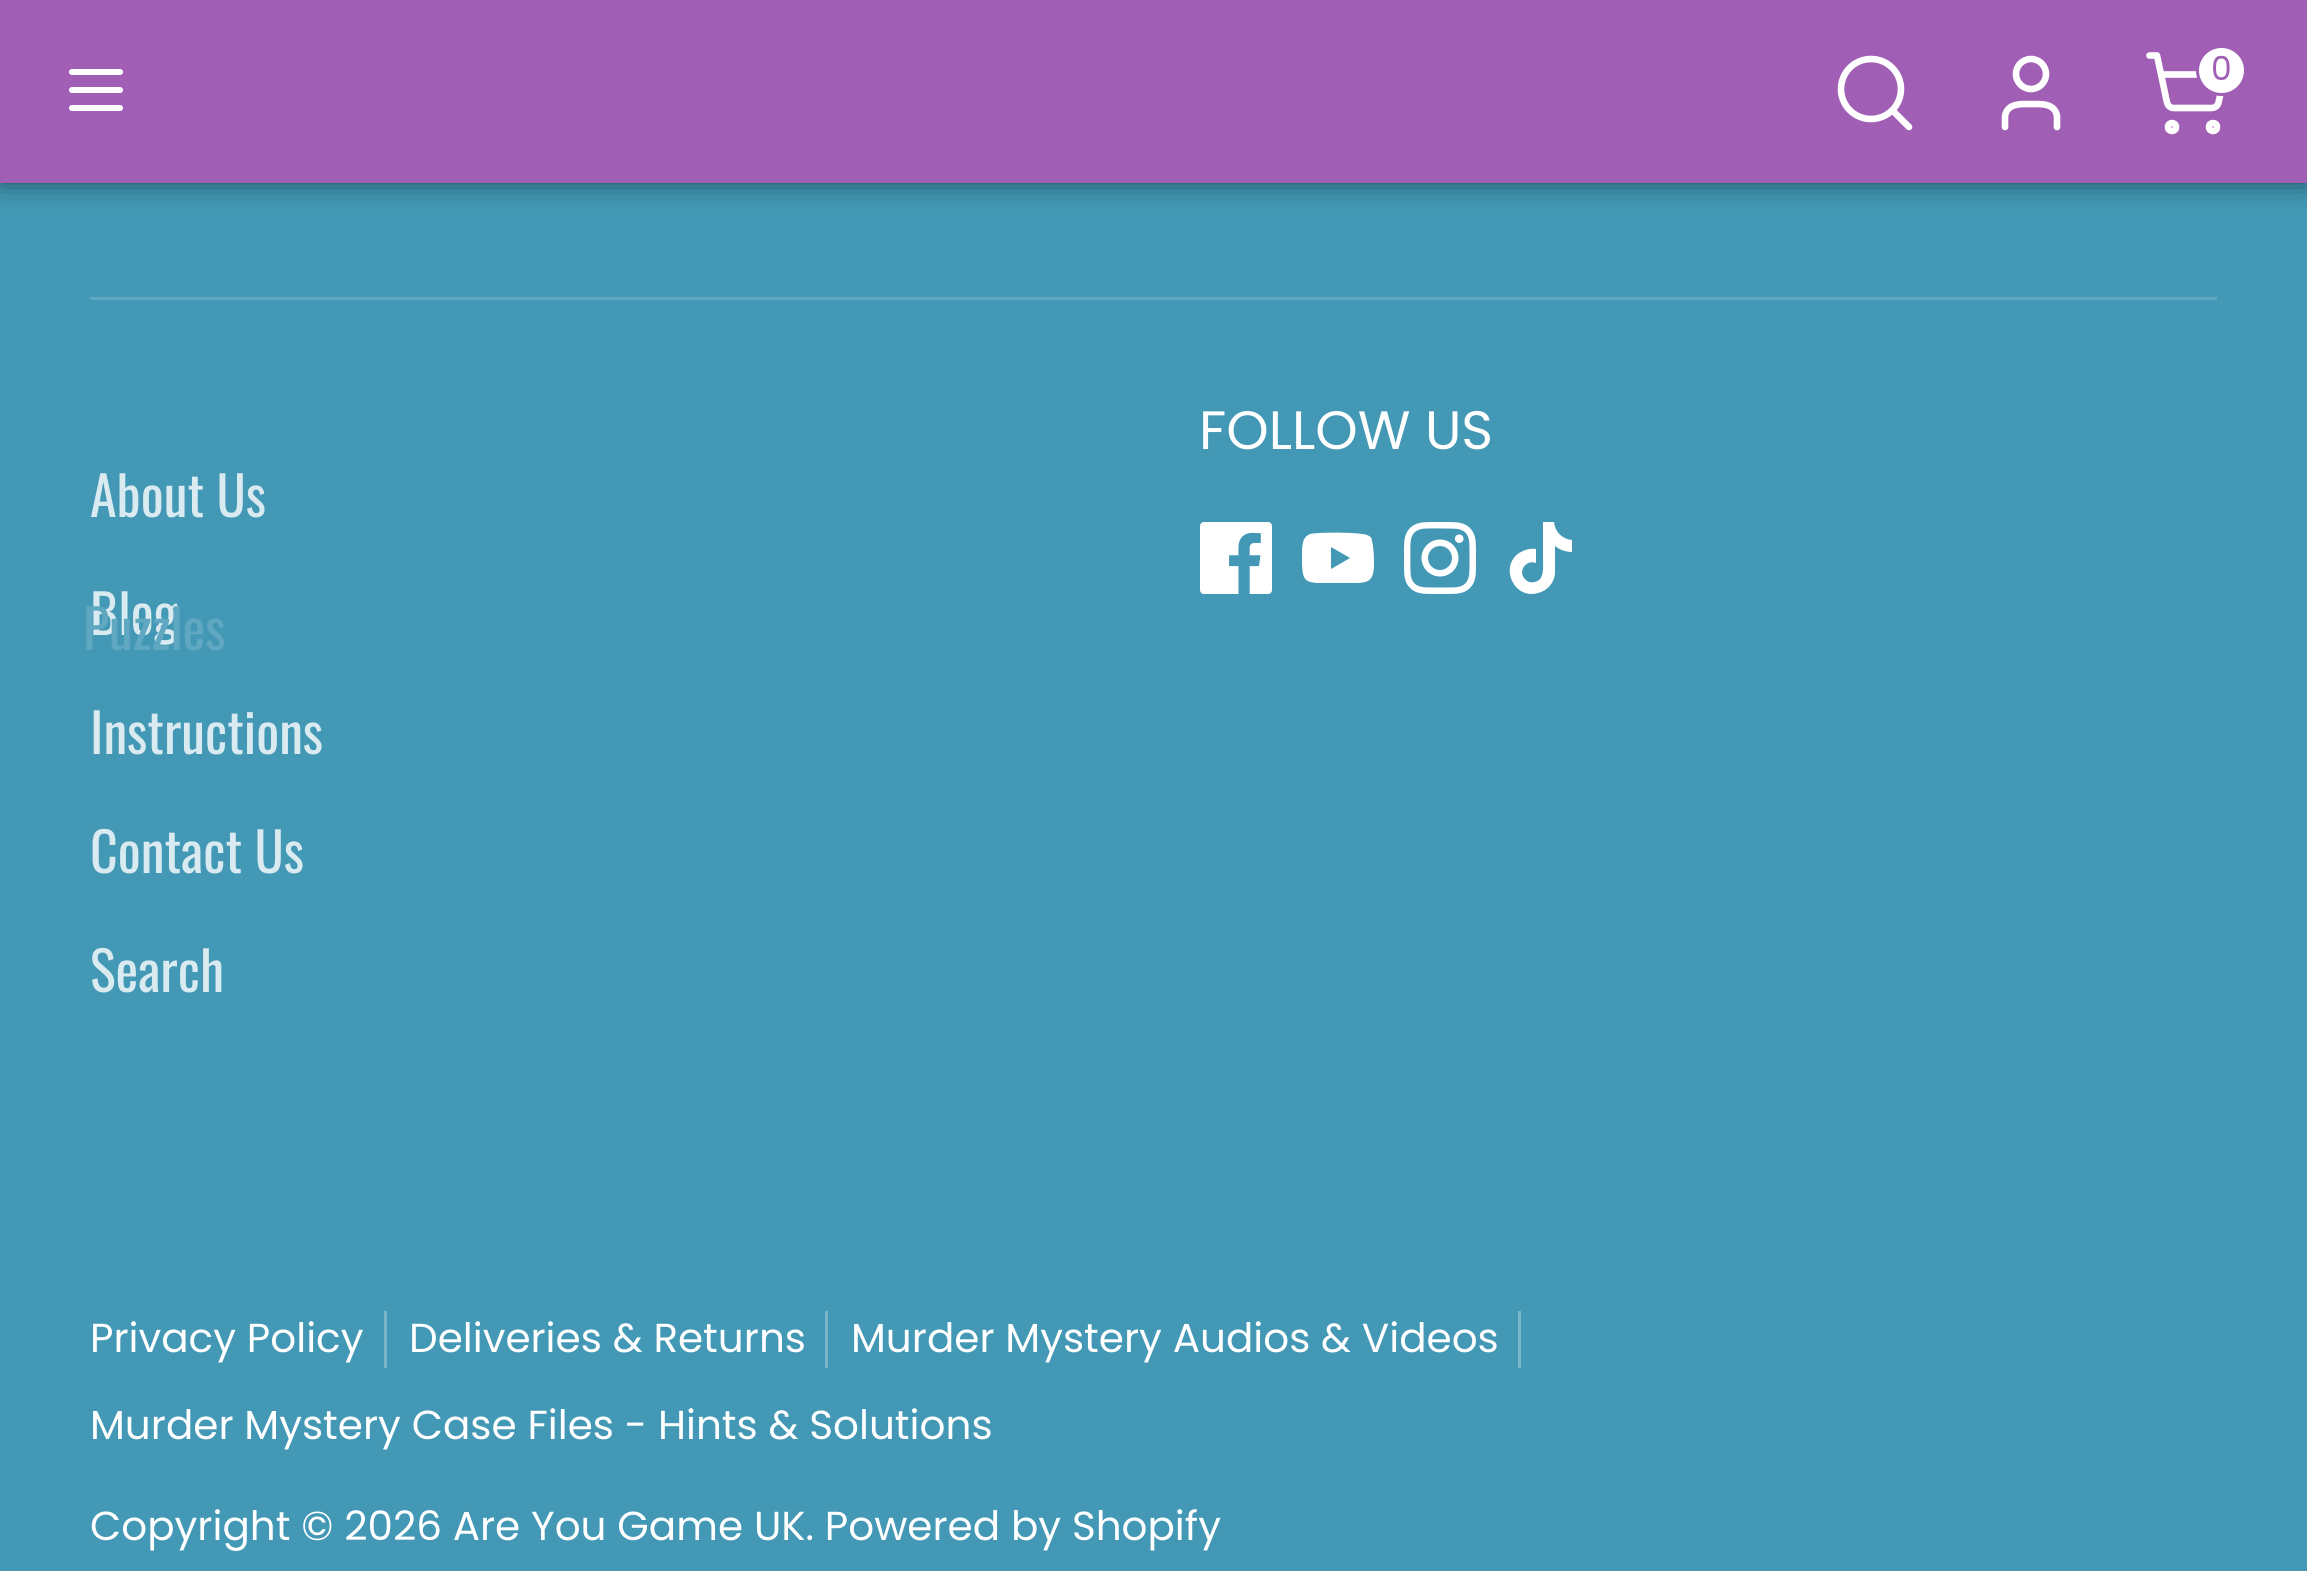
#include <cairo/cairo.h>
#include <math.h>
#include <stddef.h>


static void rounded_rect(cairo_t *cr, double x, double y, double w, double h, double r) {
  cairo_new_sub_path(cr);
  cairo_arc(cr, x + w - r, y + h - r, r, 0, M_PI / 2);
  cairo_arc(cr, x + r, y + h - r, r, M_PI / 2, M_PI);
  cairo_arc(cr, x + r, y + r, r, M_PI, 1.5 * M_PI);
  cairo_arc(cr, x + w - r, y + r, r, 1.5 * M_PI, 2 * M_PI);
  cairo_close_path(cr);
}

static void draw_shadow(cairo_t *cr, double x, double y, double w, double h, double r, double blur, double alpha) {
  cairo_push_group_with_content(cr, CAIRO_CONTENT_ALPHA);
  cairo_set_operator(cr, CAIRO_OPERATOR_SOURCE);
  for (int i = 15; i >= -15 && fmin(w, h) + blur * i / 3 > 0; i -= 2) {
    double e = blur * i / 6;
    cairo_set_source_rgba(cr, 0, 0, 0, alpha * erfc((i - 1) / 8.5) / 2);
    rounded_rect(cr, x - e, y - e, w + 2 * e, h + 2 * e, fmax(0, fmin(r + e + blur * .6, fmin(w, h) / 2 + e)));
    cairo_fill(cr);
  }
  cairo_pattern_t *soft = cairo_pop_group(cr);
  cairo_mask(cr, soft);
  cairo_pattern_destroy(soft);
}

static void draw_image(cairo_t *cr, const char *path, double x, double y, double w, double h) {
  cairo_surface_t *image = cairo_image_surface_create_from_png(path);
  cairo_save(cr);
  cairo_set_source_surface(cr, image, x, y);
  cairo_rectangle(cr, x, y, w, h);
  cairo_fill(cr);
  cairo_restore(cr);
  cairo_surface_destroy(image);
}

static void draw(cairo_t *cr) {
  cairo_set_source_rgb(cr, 66 / 255.0, 152 / 255.0, 181 / 255.0);
  cairo_paint(cr);
  cairo_set_source_rgb(cr, 0, 0, 0);
  draw_shadow(cr, 0, -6, 2307, 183, 0, 15, 0.75);
  cairo_set_source_rgb(cr, 160 / 255.0, 94 / 255.0, 181 / 255.0);
  cairo_rectangle(cr, 0, 0, 2307, 183);
  cairo_fill(cr);
  cairo_new_path(cr);
  cairo_move_to(cr, 72, 90);
  cairo_line_to(cr, 120, 90);
  cairo_move_to(cr, 72, 72);
  cairo_line_to(cr, 120, 72);
  cairo_move_to(cr, 72, 108);
  cairo_line_to(cr, 120, 108);
  cairo_set_source_rgb(cr, 1, 1, 1);
  cairo_set_line_width(cr, 6);
  cairo_set_line_cap(cr, CAIRO_LINE_CAP_ROUND);
  cairo_set_line_join(cr, CAIRO_LINE_JOIN_ROUND);
  cairo_stroke(cr);
  cairo_arc(cr, 1871, 89, 30, 0, 2 * M_PI);
  cairo_set_line_width(cr, 6.6);
  cairo_set_line_cap(cr, CAIRO_LINE_CAP_BUTT);
  cairo_set_line_join(cr, CAIRO_LINE_JOIN_MITER);
  cairo_stroke(cr);
  cairo_new_path(cr);
  cairo_move_to(cr, 1909, 127);
  cairo_line_to(cr, 1892.5, 110.5);
  cairo_set_line_cap(cr, CAIRO_LINE_CAP_ROUND);
  cairo_set_line_join(cr, CAIRO_LINE_JOIN_ROUND);
  cairo_stroke(cr);
  cairo_new_path(cr);
  cairo_move_to(cr, 2057, 127);
  cairo_line_to(cr, 2057, 116);
  cairo_curve_to(cr, 2054.5, 103, 2041.5, 104, 2031, 104);
  cairo_curve_to(cr, 2020.5, 104, 2007.5, 103, 2005, 116);
  cairo_line_to(cr, 2005, 127);
  cairo_stroke(cr);
  cairo_arc(cr, 2031, 74, 15, 0, 2 * M_PI);
  cairo_set_line_cap(cr, CAIRO_LINE_CAP_BUTT);
  cairo_set_line_join(cr, CAIRO_LINE_JOIN_MITER);
  cairo_stroke(cr);
  cairo_arc(cr, 2172, 127, 4, 0, 2 * M_PI);
  cairo_stroke(cr);
  cairo_arc(cr, 2213, 127, 4, 0, 2 * M_PI);
  cairo_stroke(cr);
  cairo_new_path(cr);
  cairo_move_to(cr, 2149.5, 55.5);
  cairo_line_to(cr, 2157, 55.5);
  cairo_line_to(cr, 2167, 102.5);
  cairo_curve_to(cr, 2168, 106, 2171, 108.5, 2174.5, 108);
  cairo_line_to(cr, 2211.5, 108);
  cairo_curve_to(cr, 2215, 108, 2218, 105.5, 2218.5, 102.5);
  cairo_line_to(cr, 2225, 74.5);
  cairo_line_to(cr, 2161, 74.5);
  cairo_set_line_cap(cr, CAIRO_LINE_CAP_ROUND);
  cairo_set_line_join(cr, CAIRO_LINE_JOIN_ROUND);
  cairo_stroke(cr);
  cairo_arc(cr, 2221.5, 70.5, 24, 0, 2 * M_PI);
  cairo_fill_preserve(cr);
  cairo_set_source_rgb(cr, 160 / 255.0, 94 / 255.0, 181 / 255.0);
  cairo_set_line_width(cr, 3);
  cairo_set_line_cap(cr, CAIRO_LINE_CAP_BUTT);
  cairo_set_line_join(cr, CAIRO_LINE_JOIN_MITER);
  cairo_stroke(cr);
  cairo_set_source_rgb(cr, 94 / 255.0, 167 / 255.0, 192 / 255.0);
  cairo_rectangle(cr, 90, 297, 2127, 3);
  cairo_fill(cr);
  draw_image(cr, "images/1.png", 1200, 522, 72, 72);
  cairo_save(cr);
  cairo_rectangle(cr, 1302, 522, 72, 72);
  cairo_clip(cr);
  cairo_set_source_rgb(cr, 1, 1, 1);
  cairo_new_path(cr);
  cairo_move_to(cr, 1372, 541);
  cairo_curve_to(cr, 1372, 538, 1370, 536, 1367, 535);
  cairo_curve_to(cr, 1360, 532, 1318, 532, 1310, 534);
  cairo_curve_to(cr, 1308, 535, 1306, 536, 1305, 538);
  cairo_curve_to(cr, 1301, 542, 1302, 558, 1302, 565);
  cairo_curve_to(cr, 1303, 577, 1303, 582, 1317, 583);
  cairo_line_to(cr, 1342, 583);
  cairo_line_to(cr, 1359, 583);
  cairo_curve_to(cr, 1371, 582, 1373, 578, 1374, 567);
  cairo_curve_to(cr, 1374, 558, 1374, 549, 1372, 541);
  cairo_close_path(cr);
  cairo_move_to(cr, 1331, 569);
  cairo_line_to(cr, 1331, 547);
  cairo_line_to(cr, 1350, 558);
  cairo_close_path(cr);
  cairo_fill(cr);
  cairo_restore(cr);
  draw_image(cr, "images/2.png", 1404, 522, 72, 72);
  cairo_set_source_rgb(cr, 1, 1, 1);
  cairo_new_path(cr);
  cairo_move_to(cr, 1543, 522);
  cairo_line_to(cr, 1554, 522);
  cairo_curve_to(cr, 1555, 532, 1562, 539, 1572, 540);
  cairo_line_to(cr, 1572, 552);
  cairo_curve_to(cr, 1566, 552, 1560, 550, 1555, 546);
  cairo_line_to(cr, 1555, 574);
  cairo_curve_to(cr, 1554, 583, 1547, 591, 1538, 593);
  cairo_curve_to(cr, 1514, 600, 1499, 567, 1519, 553);
  cairo_curve_to(cr, 1524, 550, 1530, 548, 1536, 549);
  cairo_line_to(cr, 1536, 563);
  cairo_curve_to(cr, 1525, 559, 1517, 573, 1526, 580);
  cairo_curve_to(cr, 1528, 582, 1531, 583, 1534, 582);
  cairo_curve_to(cr, 1545, 581, 1543, 566, 1543, 558);
  cairo_close_path(cr);
  cairo_fill(cr);
  cairo_set_source_rgb(cr, 123 / 255.0, 183 / 255.0, 203 / 255.0);
  cairo_rectangle(cr, 384, 1311, 3, 57);
  cairo_fill(cr);
  cairo_rectangle(cr, 825, 1311, 3, 57);
  cairo_fill(cr);
  cairo_rectangle(cr, 1518, 1311, 3, 57);
  cairo_fill(cr);
  cairo_select_font_face(cr, "Poppins", CAIRO_FONT_SLANT_NORMAL, CAIRO_FONT_WEIGHT_NORMAL);
  cairo_set_font_size(cr, 33);
  cairo_set_source_rgb(cr, 160 / 255.0, 94 / 255.0, 181 / 255.0);
  cairo_move_to(cr, 2211, 80);
  cairo_show_text(cr, "0");
  cairo_set_font_size(cr, 54);
  cairo_set_source_rgb(cr, 1, 1, 1);
  cairo_move_to(cr, 1199, 449);
  cairo_show_text(cr, "FOLLOW US");
  cairo_select_font_face(cr, "Oswald", CAIRO_FONT_SLANT_NORMAL, CAIRO_FONT_WEIGHT_NORMAL);
  cairo_set_source_rgb(cr, 217 / 255.0, 234 / 255.0, 240 / 255.0);
  cairo_move_to(cr, 90, 517);
  cairo_show_text(cr, "About Us");
  cairo_move_to(cr, 90, 635);
  cairo_show_text(cr, "Blog");
  cairo_set_source_rgb(cr, 96 / 255.0, 168 / 255.0, 193 / 255.0);
  cairo_move_to(cr, 83, 650);
  cairo_show_text(cr, "Puzzles");
  cairo_set_source_rgb(cr, 217 / 255.0, 234 / 255.0, 240 / 255.0);
  cairo_move_to(cr, 90, 754);
  cairo_show_text(cr, "Instructions");
  cairo_move_to(cr, 90, 873);
  cairo_show_text(cr, "Contact Us");
  cairo_move_to(cr, 90, 992);
  cairo_show_text(cr, "Search");
  cairo_select_font_face(cr, "Poppins", CAIRO_FONT_SLANT_NORMAL, CAIRO_FONT_WEIGHT_NORMAL);
  cairo_set_font_size(cr, 40.5);
  cairo_set_source_rgb(cr, 1, 1, 1);
  cairo_move_to(cr, 90, 1352);
  cairo_show_text(cr, "Privacy Policy");
  cairo_move_to(cr, 409, 1352);
  cairo_show_text(cr, "Deliveries & Returns");
  cairo_move_to(cr, 851, 1352);
  cairo_show_text(cr, "Murder Mystery Audios & Videos");
  cairo_move_to(cr, 90, 1439);
  cairo_show_text(cr, "Murder Mystery Case Files - Hints & Solutions");
  cairo_move_to(cr, 90, 1540);
  cairo_show_text(cr, "Copyright © 2026 Are You Game UK. Powered by Shopify");
}

int main(void) {
  cairo_surface_t *surface = cairo_image_surface_create(CAIRO_FORMAT_RGB24, 2307, 1571);
  cairo_t *cr = cairo_create(surface);
  cairo_font_options_t *options = cairo_font_options_create();
  cairo_font_options_set_hint_metrics(options, CAIRO_HINT_METRICS_OFF);
  cairo_font_options_set_hint_style(options, CAIRO_HINT_STYLE_NONE);
  cairo_set_font_options(cr, options);
  cairo_set_miter_limit(cr, 4);
  draw(cr);
  cairo_surface_write_to_png(surface, "out.png");
  cairo_font_options_destroy(options);
  cairo_destroy(cr);
  cairo_surface_destroy(surface);
  return 0;
}
